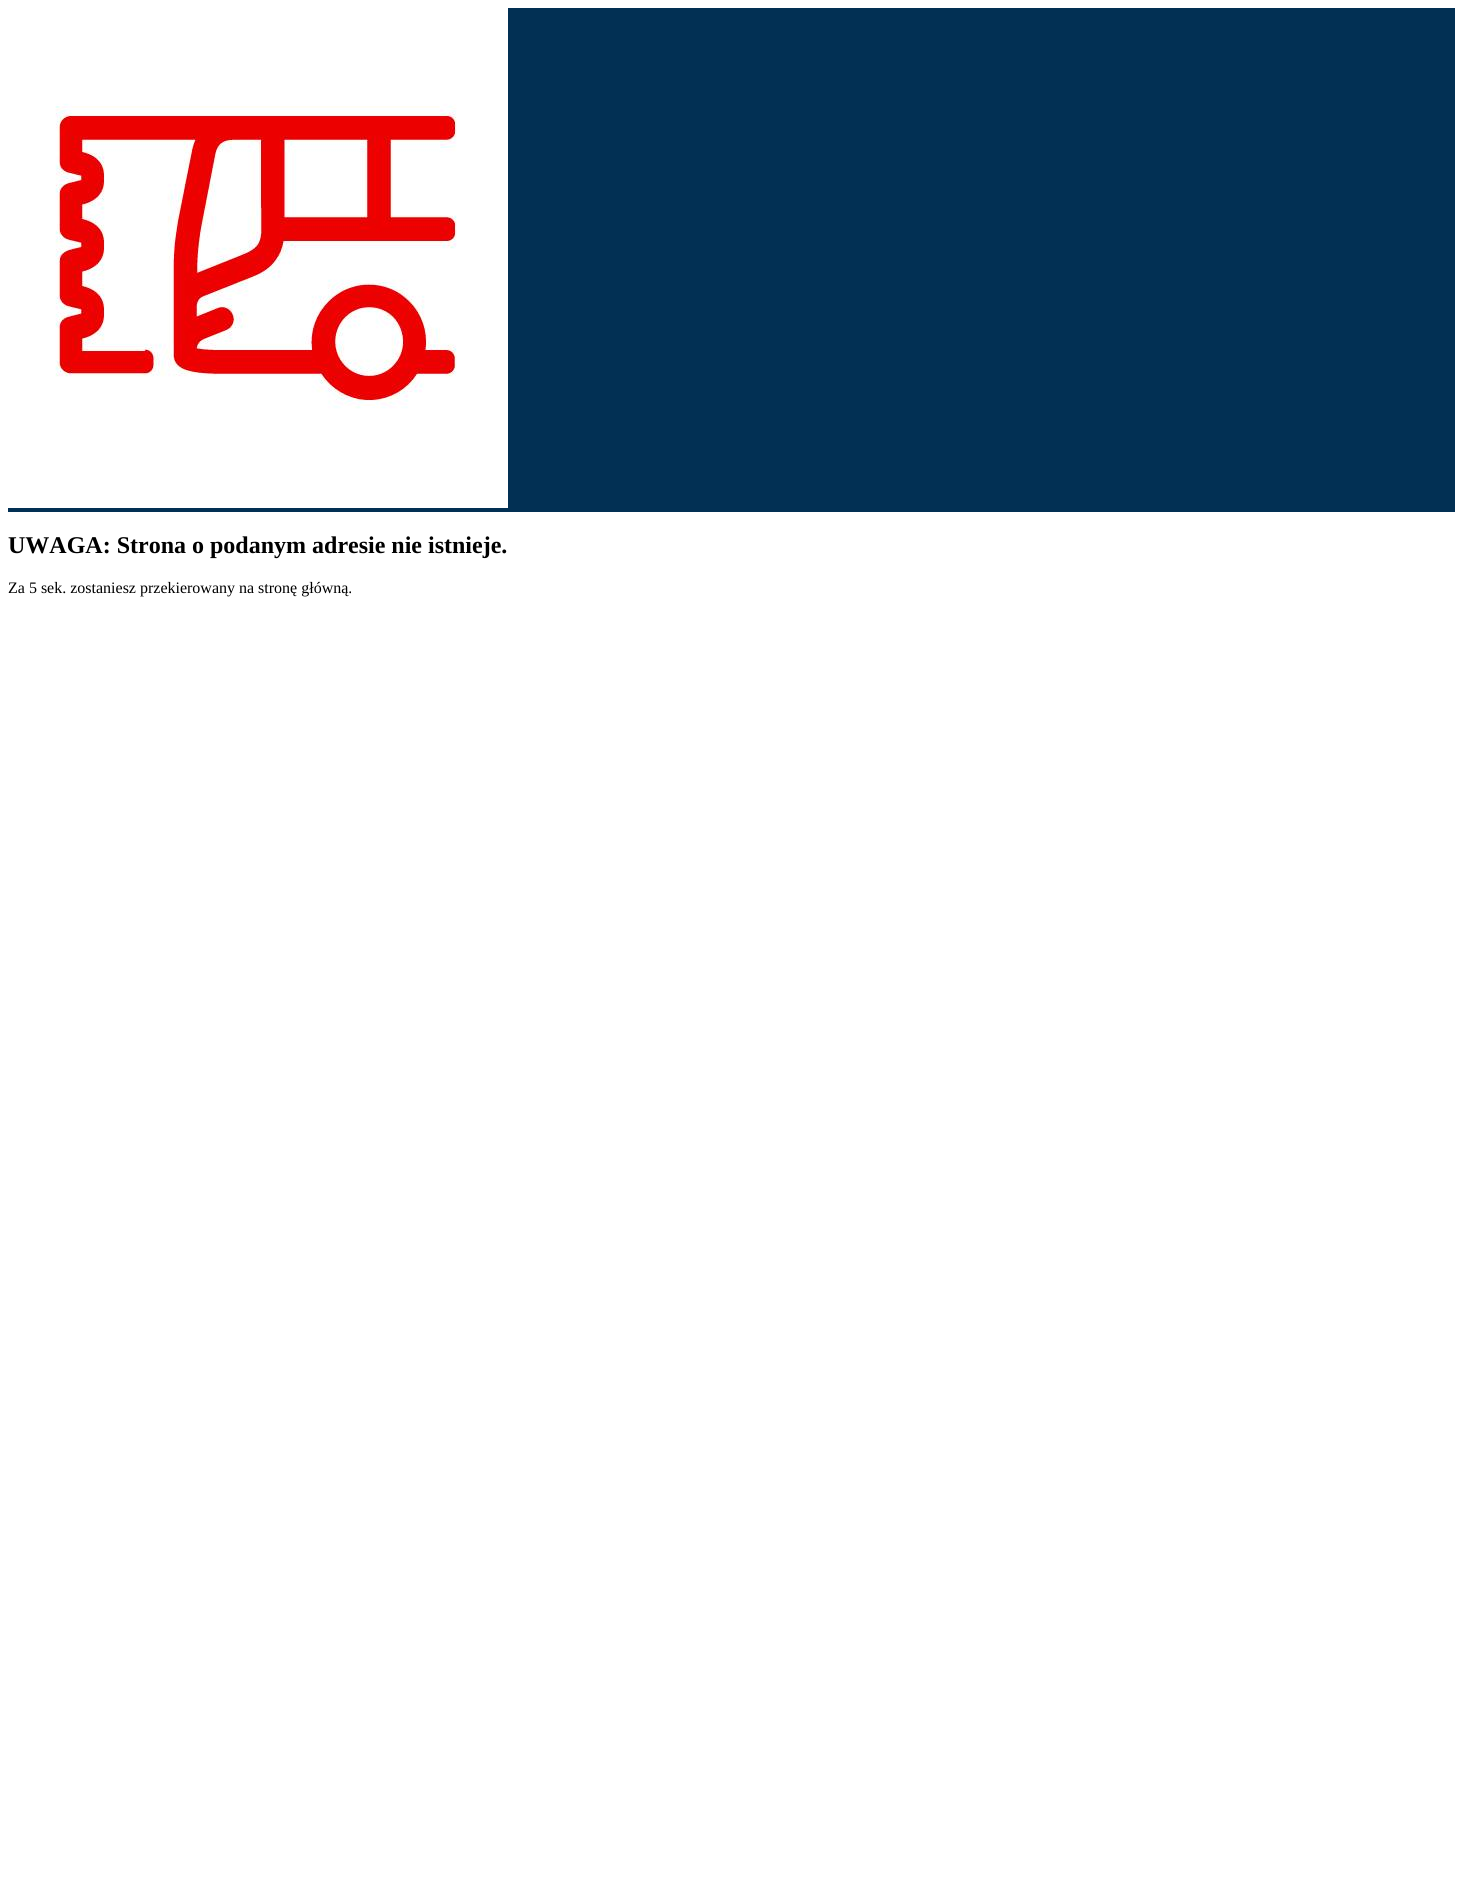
#include <cairo/cairo.h>
#include <math.h>
#include <stddef.h>


static void draw_image(cairo_t *cr, const char *path, double x, double y, double w, double h) {
  cairo_surface_t *image = cairo_image_surface_create_from_png(path);
  cairo_save(cr);
  cairo_set_source_surface(cr, image, x, y);
  cairo_rectangle(cr, x, y, w, h);
  cairo_fill(cr);
  cairo_restore(cr);
  cairo_surface_destroy(image);
}

static void draw(cairo_t *cr) {
  cairo_set_source_rgb(cr, 1, 1, 1);
  cairo_paint(cr);
  cairo_set_source_rgb(cr, 2 / 255.0, 48 / 255.0, 84 / 255.0);
  cairo_rectangle(cr, 8, 8, 1447, 504);
  cairo_fill(cr);
  draw_image(cr, "images/1.png", 8, 8, 500, 500);
  cairo_select_font_face(cr, "Liberation Serif", CAIRO_FONT_SLANT_NORMAL, CAIRO_FONT_WEIGHT_BOLD);
  cairo_set_font_size(cr, 24);
  cairo_set_source_rgb(cr, 0, 0, 0);
  cairo_move_to(cr, 8, 553);
  cairo_show_text(cr, "UWAGA: Strona o podanym adresie nie istnieje.");
  cairo_select_font_face(cr, "Liberation Serif", CAIRO_FONT_SLANT_NORMAL, CAIRO_FONT_WEIGHT_NORMAL);
  cairo_set_font_size(cr, 16);
  cairo_move_to(cr, 8, 593);
  cairo_show_text(cr, "Za 5 sek. zostaniesz przekierowany na stronę główną.");
}

int main(void) {
  cairo_surface_t *surface = cairo_image_surface_create(CAIRO_FORMAT_RGB24, 1463, 1898);
  cairo_t *cr = cairo_create(surface);
  cairo_font_options_t *options = cairo_font_options_create();
  cairo_font_options_set_hint_metrics(options, CAIRO_HINT_METRICS_OFF);
  cairo_font_options_set_hint_style(options, CAIRO_HINT_STYLE_NONE);
  cairo_set_font_options(cr, options);
  cairo_set_miter_limit(cr, 4);
  draw(cr);
  cairo_surface_write_to_png(surface, "out.png");
  cairo_font_options_destroy(options);
  cairo_destroy(cr);
  cairo_surface_destroy(surface);
  return 0;
}
